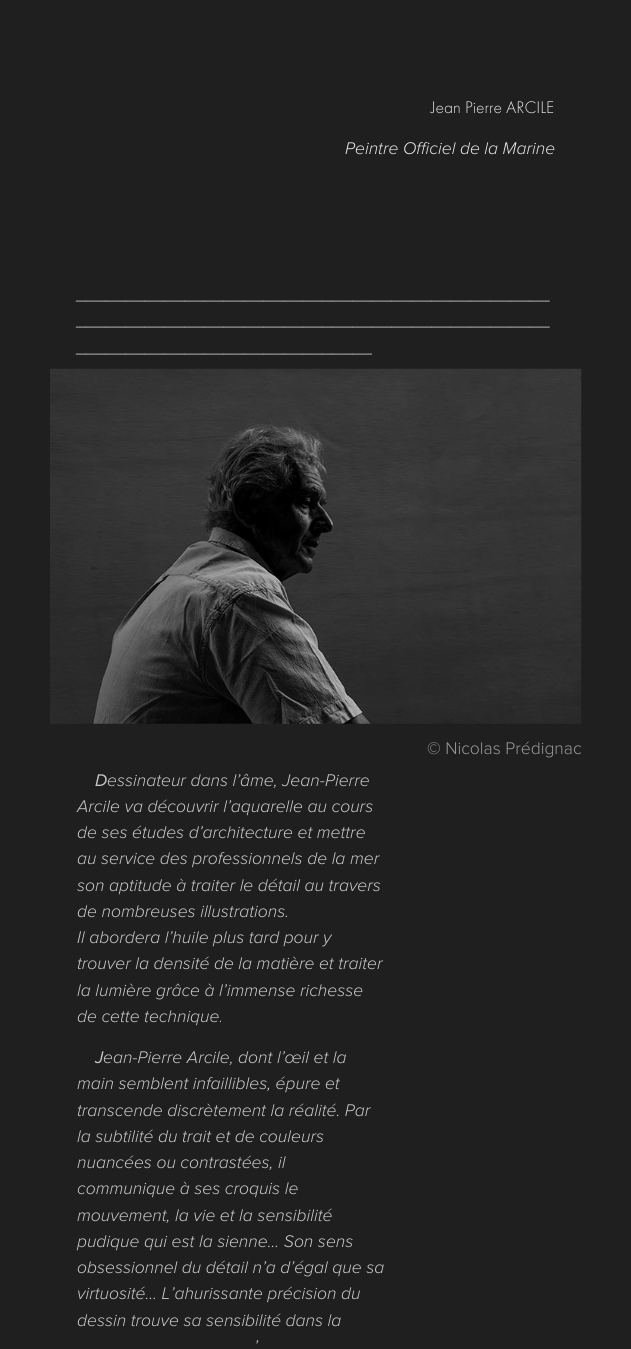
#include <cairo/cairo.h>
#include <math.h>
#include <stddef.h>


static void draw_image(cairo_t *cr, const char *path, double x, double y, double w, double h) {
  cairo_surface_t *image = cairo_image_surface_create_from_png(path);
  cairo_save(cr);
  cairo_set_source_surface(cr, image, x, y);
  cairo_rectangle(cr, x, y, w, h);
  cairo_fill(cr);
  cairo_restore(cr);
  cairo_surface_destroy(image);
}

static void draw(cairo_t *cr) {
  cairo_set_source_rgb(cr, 31 / 255.0, 31 / 255.0, 31 / 255.0);
  cairo_paint(cr);
  draw_image(cr, "images/1.png", 50, 368, 532, 356);
  cairo_select_font_face(cr, "Futura PT Light", CAIRO_FONT_SLANT_NORMAL, CAIRO_FONT_WEIGHT_NORMAL);
  cairo_set_font_size(cr, 17.5);
  cairo_set_source_rgb(cr, 230 / 255.0, 228 / 255.0, 228 / 255.0);
  cairo_move_to(cr, 431, 113);
  cairo_show_text(cr, "Jean Pierre ARCILE");
  cairo_select_font_face(cr, "Proxima Nova Light", CAIRO_FONT_SLANT_ITALIC, CAIRO_FONT_WEIGHT_NORMAL);
  cairo_move_to(cr, 345, 154);
  cairo_show_text(cr, "Peintre Officiel de la Marine");
  cairo_move_to(cr, 77, 300);
  cairo_show_text(cr, "________________________________________________");
  cairo_move_to(cr, 77, 326);
  cairo_show_text(cr, "________________________________________________");
  cairo_move_to(cr, 77, 353);
  cairo_show_text(cr, "______________________________");
  cairo_select_font_face(cr, "Proxima Nova Light", CAIRO_FONT_SLANT_NORMAL, CAIRO_FONT_WEIGHT_NORMAL);
  cairo_set_source_rgb(cr, 153 / 255.0, 153 / 255.0, 153 / 255.0);
  cairo_move_to(cr, 427, 754);
  cairo_show_text(cr, "© Nicolas Prédignac");
  cairo_select_font_face(cr, "Proxima Nova", CAIRO_FONT_SLANT_ITALIC, CAIRO_FONT_WEIGHT_NORMAL);
  cairo_set_source_rgb(cr, 200 / 255.0, 200 / 255.0, 200 / 255.0);
  cairo_move_to(cr, 95, 786);
  cairo_show_text(cr, "D");
  cairo_select_font_face(cr, "Proxima Nova Light", CAIRO_FONT_SLANT_ITALIC, CAIRO_FONT_WEIGHT_NORMAL);
  cairo_move_to(cr, 107, 786);
  cairo_show_text(cr, "essinateur dans l’âme, Jean-Pierre");
  cairo_move_to(cr, 77, 812);
  cairo_show_text(cr, "Arcile va découvrir l’aquarelle au cours");
  cairo_move_to(cr, 77, 838);
  cairo_show_text(cr, "de ses études d’architecture et mettre");
  cairo_move_to(cr, 77, 864);
  cairo_show_text(cr, "au service des professionnels de la mer");
  cairo_move_to(cr, 77, 891);
  cairo_show_text(cr, "son aptitude à traiter le détail au travers");
  cairo_move_to(cr, 77, 917);
  cairo_show_text(cr, "de nombreuses illustrations.");
  cairo_move_to(cr, 77, 943);
  cairo_show_text(cr, "Il abordera l’huile plus tard pour y");
  cairo_move_to(cr, 77, 969);
  cairo_show_text(cr, "trouver la densité de la matière et traiter");
  cairo_move_to(cr, 77, 996);
  cairo_show_text(cr, "la lumière grâce à l’immense richesse");
  cairo_move_to(cr, 77, 1022);
  cairo_show_text(cr, "de cette technique.");
  cairo_select_font_face(cr, "Proxima Nova", CAIRO_FONT_SLANT_ITALIC, CAIRO_FONT_WEIGHT_NORMAL);
  cairo_move_to(cr, 95, 1063);
  cairo_show_text(cr, "J");
  cairo_select_font_face(cr, "Proxima Nova Light", CAIRO_FONT_SLANT_ITALIC, CAIRO_FONT_WEIGHT_NORMAL);
  cairo_move_to(cr, 103, 1063);
  cairo_show_text(cr, "ean-Pierre Arcile, dont l’œil et la");
  cairo_move_to(cr, 77, 1089);
  cairo_show_text(cr, "main semblent infaillibles, épure et");
  cairo_move_to(cr, 77, 1116);
  cairo_show_text(cr, "transcende discrètement la réalité. Par");
  cairo_move_to(cr, 77, 1142);
  cairo_show_text(cr, "la subtilité du trait et de couleurs");
  cairo_move_to(cr, 77, 1168);
  cairo_show_text(cr, "nuancées ou contrastées, il");
  cairo_move_to(cr, 77, 1194);
  cairo_show_text(cr, "communique à ses croquis le");
  cairo_move_to(cr, 77, 1221);
  cairo_show_text(cr, "mouvement, la vie et la sensibilité");
  cairo_move_to(cr, 77, 1247);
  cairo_show_text(cr, "pudique qui est la sienne... Son sens");
  cairo_move_to(cr, 77, 1273);
  cairo_show_text(cr, "obsessionnel du détail n’a d’égal que sa");
  cairo_move_to(cr, 77, 1299);
  cairo_show_text(cr, "virtuosité… L’ahurissante précision du");
  cairo_move_to(cr, 77, 1326);
  cairo_show_text(cr, "dessin trouve sa sensibilité dans la");
  cairo_move_to(cr, 254, 1352);
  cairo_show_text(cr, "’");
}

int main(void) {
  cairo_surface_t *surface = cairo_image_surface_create(CAIRO_FORMAT_RGB24, 631, 1349);
  cairo_t *cr = cairo_create(surface);
  cairo_font_options_t *options = cairo_font_options_create();
  cairo_font_options_set_hint_metrics(options, CAIRO_HINT_METRICS_OFF);
  cairo_font_options_set_hint_style(options, CAIRO_HINT_STYLE_NONE);
  cairo_set_font_options(cr, options);
  cairo_set_miter_limit(cr, 4);
  draw(cr);
  cairo_surface_write_to_png(surface, "out.png");
  cairo_font_options_destroy(options);
  cairo_destroy(cr);
  cairo_surface_destroy(surface);
  return 0;
}
